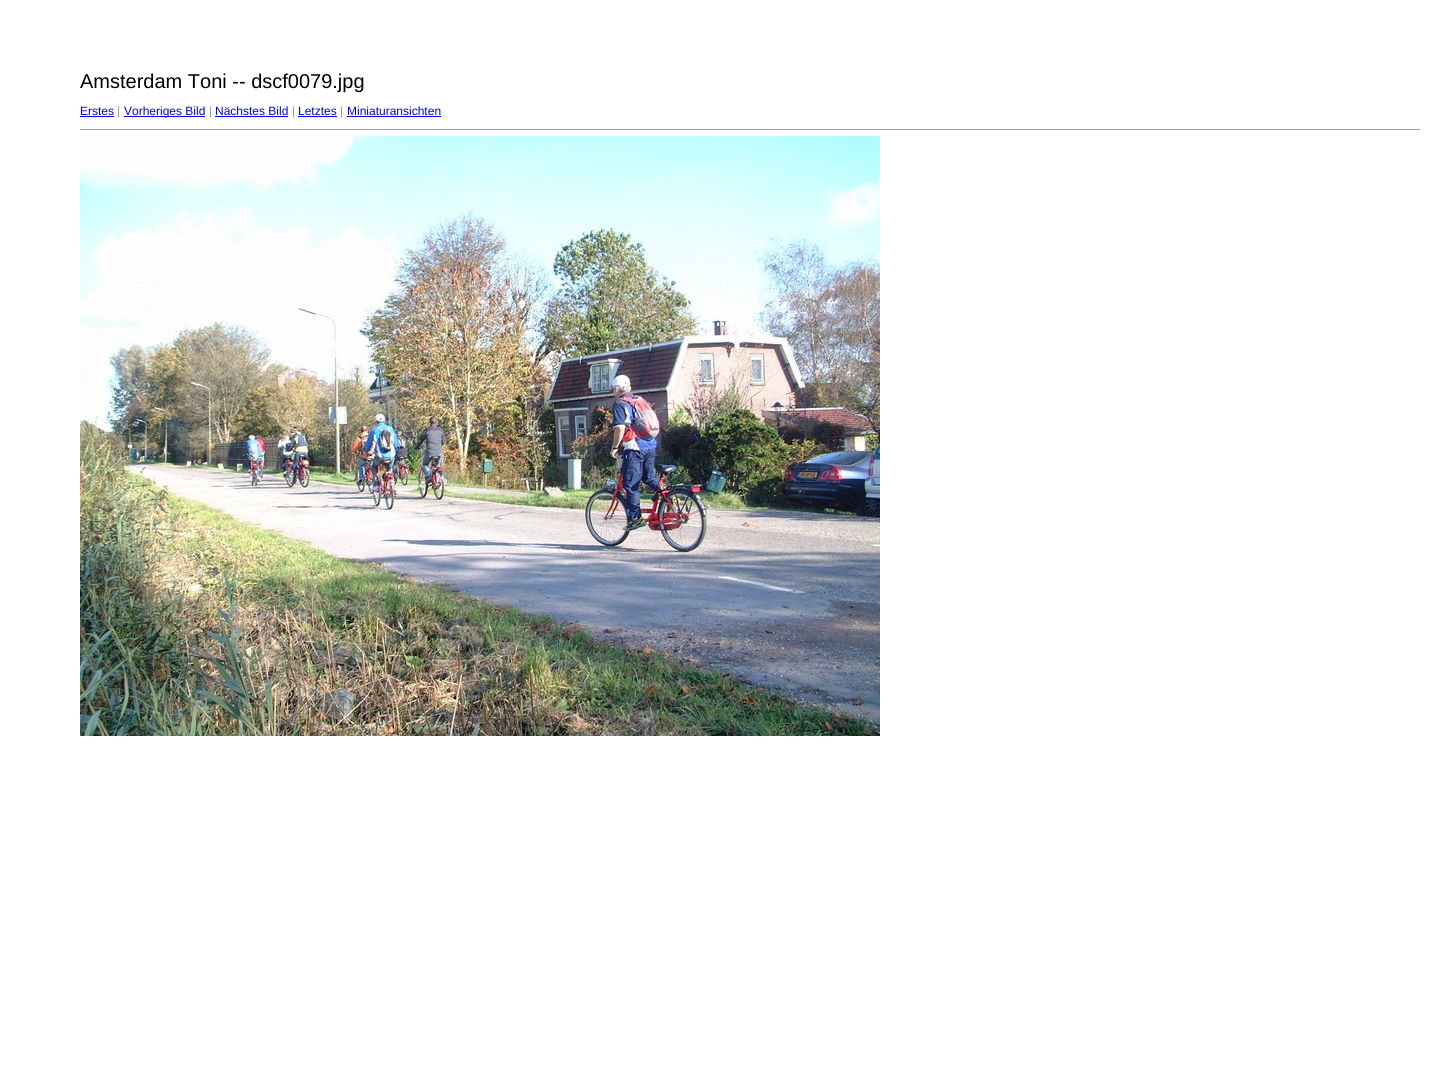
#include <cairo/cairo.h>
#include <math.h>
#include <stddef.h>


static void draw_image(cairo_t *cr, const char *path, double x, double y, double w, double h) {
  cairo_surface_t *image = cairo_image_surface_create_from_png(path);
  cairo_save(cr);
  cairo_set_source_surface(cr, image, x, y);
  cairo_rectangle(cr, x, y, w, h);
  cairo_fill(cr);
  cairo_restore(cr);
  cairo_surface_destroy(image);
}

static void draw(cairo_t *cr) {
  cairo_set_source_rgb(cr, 1, 1, 1);
  cairo_paint(cr);
  cairo_set_source_rgb(cr, 0, 0, 238 / 255.0);
  cairo_rectangle(cr, 80, 116, 34, 1);
  cairo_fill(cr);
  cairo_rectangle(cr, 124, 116, 81, 1);
  cairo_fill(cr);
  cairo_rectangle(cr, 215, 116, 73, 1);
  cairo_fill(cr);
  cairo_rectangle(cr, 298, 116, 39, 1);
  cairo_fill(cr);
  cairo_rectangle(cr, 347, 116, 94, 1);
  cairo_fill(cr);
  cairo_set_source_rgb(cr, 159 / 255.0, 159 / 255.0, 159 / 255.0);
  cairo_rectangle(cr, 80, 129, 1341, 1);
  cairo_fill(cr);
  cairo_set_source_rgb(cr, 238 / 255.0, 238 / 255.0, 238 / 255.0);
  cairo_rectangle(cr, 1420, 129, 1, 1);
  cairo_fill(cr);
  draw_image(cr, "images/1.png", 80, 136, 800, 600);
  cairo_select_font_face(cr, "Liberation Sans", CAIRO_FONT_SLANT_NORMAL, CAIRO_FONT_WEIGHT_NORMAL);
  cairo_set_font_size(cr, 20);
  cairo_set_source_rgb(cr, 0, 0, 0);
  cairo_move_to(cr, 80, 88);
  cairo_show_text(cr, "Amsterdam Toni -- dscf0079.jpg");
  cairo_set_font_size(cr, 12);
  cairo_set_source_rgb(cr, 0, 0, 238 / 255.0);
  cairo_move_to(cr, 80, 115);
  cairo_show_text(cr, "Erstes");
  cairo_set_source_rgb(cr, 151 / 255.0, 151 / 255.0, 151 / 255.0);
  cairo_move_to(cr, 117, 115);
  cairo_show_text(cr, "|");
  cairo_set_source_rgb(cr, 0, 0, 238 / 255.0);
  cairo_move_to(cr, 124, 115);
  cairo_show_text(cr, "Vorheriges Bild");
  cairo_set_source_rgb(cr, 151 / 255.0, 151 / 255.0, 151 / 255.0);
  cairo_move_to(cr, 209, 115);
  cairo_show_text(cr, "|");
  cairo_set_source_rgb(cr, 0, 0, 238 / 255.0);
  cairo_move_to(cr, 215, 115);
  cairo_show_text(cr, "Nächstes Bild");
  cairo_set_source_rgb(cr, 151 / 255.0, 151 / 255.0, 151 / 255.0);
  cairo_move_to(cr, 292, 115);
  cairo_show_text(cr, "|");
  cairo_set_source_rgb(cr, 0, 0, 238 / 255.0);
  cairo_move_to(cr, 298, 115);
  cairo_show_text(cr, "Letztes");
  cairo_set_source_rgb(cr, 151 / 255.0, 151 / 255.0, 151 / 255.0);
  cairo_move_to(cr, 340, 115);
  cairo_show_text(cr, "|");
  cairo_set_source_rgb(cr, 0, 0, 238 / 255.0);
  cairo_move_to(cr, 347, 115);
  cairo_show_text(cr, "Miniaturansichten");
}

int main(void) {
  cairo_surface_t *surface = cairo_image_surface_create(CAIRO_FORMAT_RGB24, 1429, 1067);
  cairo_t *cr = cairo_create(surface);
  cairo_font_options_t *options = cairo_font_options_create();
  cairo_font_options_set_hint_metrics(options, CAIRO_HINT_METRICS_OFF);
  cairo_font_options_set_hint_style(options, CAIRO_HINT_STYLE_NONE);
  cairo_set_font_options(cr, options);
  cairo_set_miter_limit(cr, 4);
  draw(cr);
  cairo_surface_write_to_png(surface, "out.png");
  cairo_font_options_destroy(options);
  cairo_destroy(cr);
  cairo_surface_destroy(surface);
  return 0;
}
